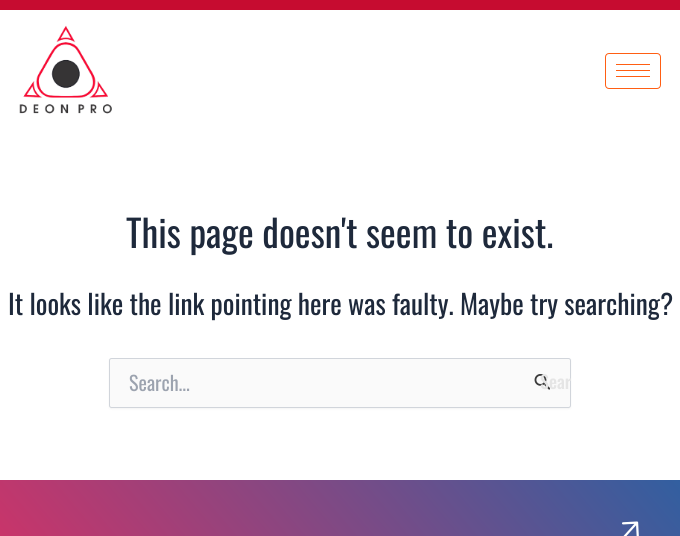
#include <cairo/cairo.h>
#include <math.h>
#include <stddef.h>


static void rounded_rect(cairo_t *cr, double x, double y, double w, double h, double r) {
  cairo_new_sub_path(cr);
  cairo_arc(cr, x + w - r, y + h - r, r, 0, M_PI / 2);
  cairo_arc(cr, x + r, y + h - r, r, M_PI / 2, M_PI);
  cairo_arc(cr, x + r, y + r, r, M_PI, 1.5 * M_PI);
  cairo_arc(cr, x + w - r, y + r, r, 1.5 * M_PI, 2 * M_PI);
  cairo_close_path(cr);
}

static void draw_shadow(cairo_t *cr, double x, double y, double w, double h, double r, double blur, double alpha) {
  cairo_push_group_with_content(cr, CAIRO_CONTENT_ALPHA);
  cairo_set_operator(cr, CAIRO_OPERATOR_SOURCE);
  for (int i = 15; i >= -15 && fmin(w, h) + blur * i / 3 > 0; i -= 2) {
    double e = blur * i / 6;
    cairo_set_source_rgba(cr, 0, 0, 0, alpha * erfc((i - 1) / 8.5) / 2);
    rounded_rect(cr, x - e, y - e, w + 2 * e, h + 2 * e, fmax(0, fmin(r + e + blur * .6, fmin(w, h) / 2 + e)));
    cairo_fill(cr);
  }
  cairo_pattern_t *soft = cairo_pop_group(cr);
  cairo_mask(cr, soft);
  cairo_pattern_destroy(soft);
}

static void draw_image(cairo_t *cr, const char *path, double x, double y, double w, double h) {
  cairo_surface_t *image = cairo_image_surface_create_from_png(path);
  cairo_save(cr);
  cairo_set_source_surface(cr, image, x, y);
  cairo_rectangle(cr, x, y, w, h);
  cairo_fill(cr);
  cairo_restore(cr);
  cairo_surface_destroy(image);
}

static void draw(cairo_t *cr) {
  cairo_pattern_t *gradient;
  cairo_set_source_rgb(cr, 1, 1, 1);
  cairo_paint(cr);
  cairo_set_source_rgb(cr, 198 / 255.0, 12 / 255.0, 48 / 255.0);
  cairo_rectangle(cr, 0, 0, 680, 10);
  cairo_fill(cr);
  draw_image(cr, "images/1.png", 19, 25, 93, 89);
  rounded_rect(cr, 605.5, 53.5, 55, 35, 3.5);
  cairo_set_source_rgb(cr, 1, 94 / 255.0, 19 / 255.0);
  cairo_set_line_width(cr, 1);
  cairo_stroke(cr);
  cairo_rectangle(cr, 616, 64, 34, 1);
  cairo_fill(cr);
  cairo_rectangle(cr, 616, 70, 34, 1);
  cairo_fill(cr);
  cairo_rectangle(cr, 616, 76, 34, 1);
  cairo_fill(cr);
  cairo_set_source_rgb(cr, 0, 0, 0);
  draw_shadow(cr, 109, 359, 462, 50, 2.5, 1, 0.05);
  cairo_set_source_rgb(cr, 250 / 255.0, 250 / 255.0, 250 / 255.0);
  rounded_rect(cr, 109.5, 358.5, 461, 49, 2);
  cairo_fill_preserve(cr);
  cairo_set_source_rgb(cr, 209 / 255.0, 213 / 255.0, 219 / 255.0);
  cairo_stroke(cr);
  draw_image(cr, "images/2.png", 534, 374, 16, 16);
  gradient = cairo_pattern_create_linear(612, 399, 68, 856);
  cairo_pattern_add_color_stop_rgba(gradient, 0, 50 / 255.0, 95 / 255.0, 160 / 255.0, 1);
  cairo_pattern_add_color_stop_rgba(gradient, 1, 242 / 255.0, 41 / 255.0, 91 / 255.0, 1);
  cairo_set_source(cr, gradient);
  cairo_pattern_destroy(gradient);
  cairo_rectangle(cr, 0, 480, 680, 56);
  cairo_fill(cr);
  draw_image(cr, "images/3.png", 622, 521, 17, 15);
  cairo_select_font_face(cr, "Oswald", CAIRO_FONT_SLANT_NORMAL, CAIRO_FONT_WEIGHT_NORMAL);
  cairo_set_font_size(cr, 37.5);
  cairo_set_source_rgb(cr, 30 / 255.0, 41 / 255.0, 59 / 255.0);
  cairo_move_to(cr, 126, 248);
  cairo_show_text(cr, "This page doesn't seem to exist.");
  cairo_set_font_size(cr, 27.4);
  cairo_move_to(cr, 8, 315);
  cairo_show_text(cr, "It looks like the link pointing here was faulty. Maybe try searching?");
  cairo_set_font_size(cr, 20);
  cairo_set_source_rgb(cr, 156 / 255.0, 163 / 255.0, 175 / 255.0);
  cairo_move_to(cr, 129, 391);
  cairo_show_text(cr, "Search...");
  cairo_save(cr);
  rounded_rect(cr, 515, 358, 56, 50, 2.5);
  cairo_clip(cr);
  cairo_select_font_face(cr, "Oswald Medium", CAIRO_FONT_SLANT_NORMAL, CAIRO_FONT_WEIGHT_NORMAL);
  cairo_set_font_size(cr, 18);
  cairo_set_source_rgb(cr, 229 / 255.0, 229 / 255.0, 229 / 255.0);
  cairo_move_to(cr, 540, 389);
  cairo_show_text(cr, "Sear");
  cairo_restore(cr);
}

int main(void) {
  cairo_surface_t *surface = cairo_image_surface_create(CAIRO_FORMAT_RGB24, 680, 536);
  cairo_t *cr = cairo_create(surface);
  cairo_font_options_t *options = cairo_font_options_create();
  cairo_font_options_set_hint_metrics(options, CAIRO_HINT_METRICS_OFF);
  cairo_font_options_set_hint_style(options, CAIRO_HINT_STYLE_NONE);
  cairo_set_font_options(cr, options);
  cairo_set_miter_limit(cr, 4);
  draw(cr);
  cairo_surface_write_to_png(surface, "out.png");
  cairo_font_options_destroy(options);
  cairo_destroy(cr);
  cairo_surface_destroy(surface);
  return 0;
}
